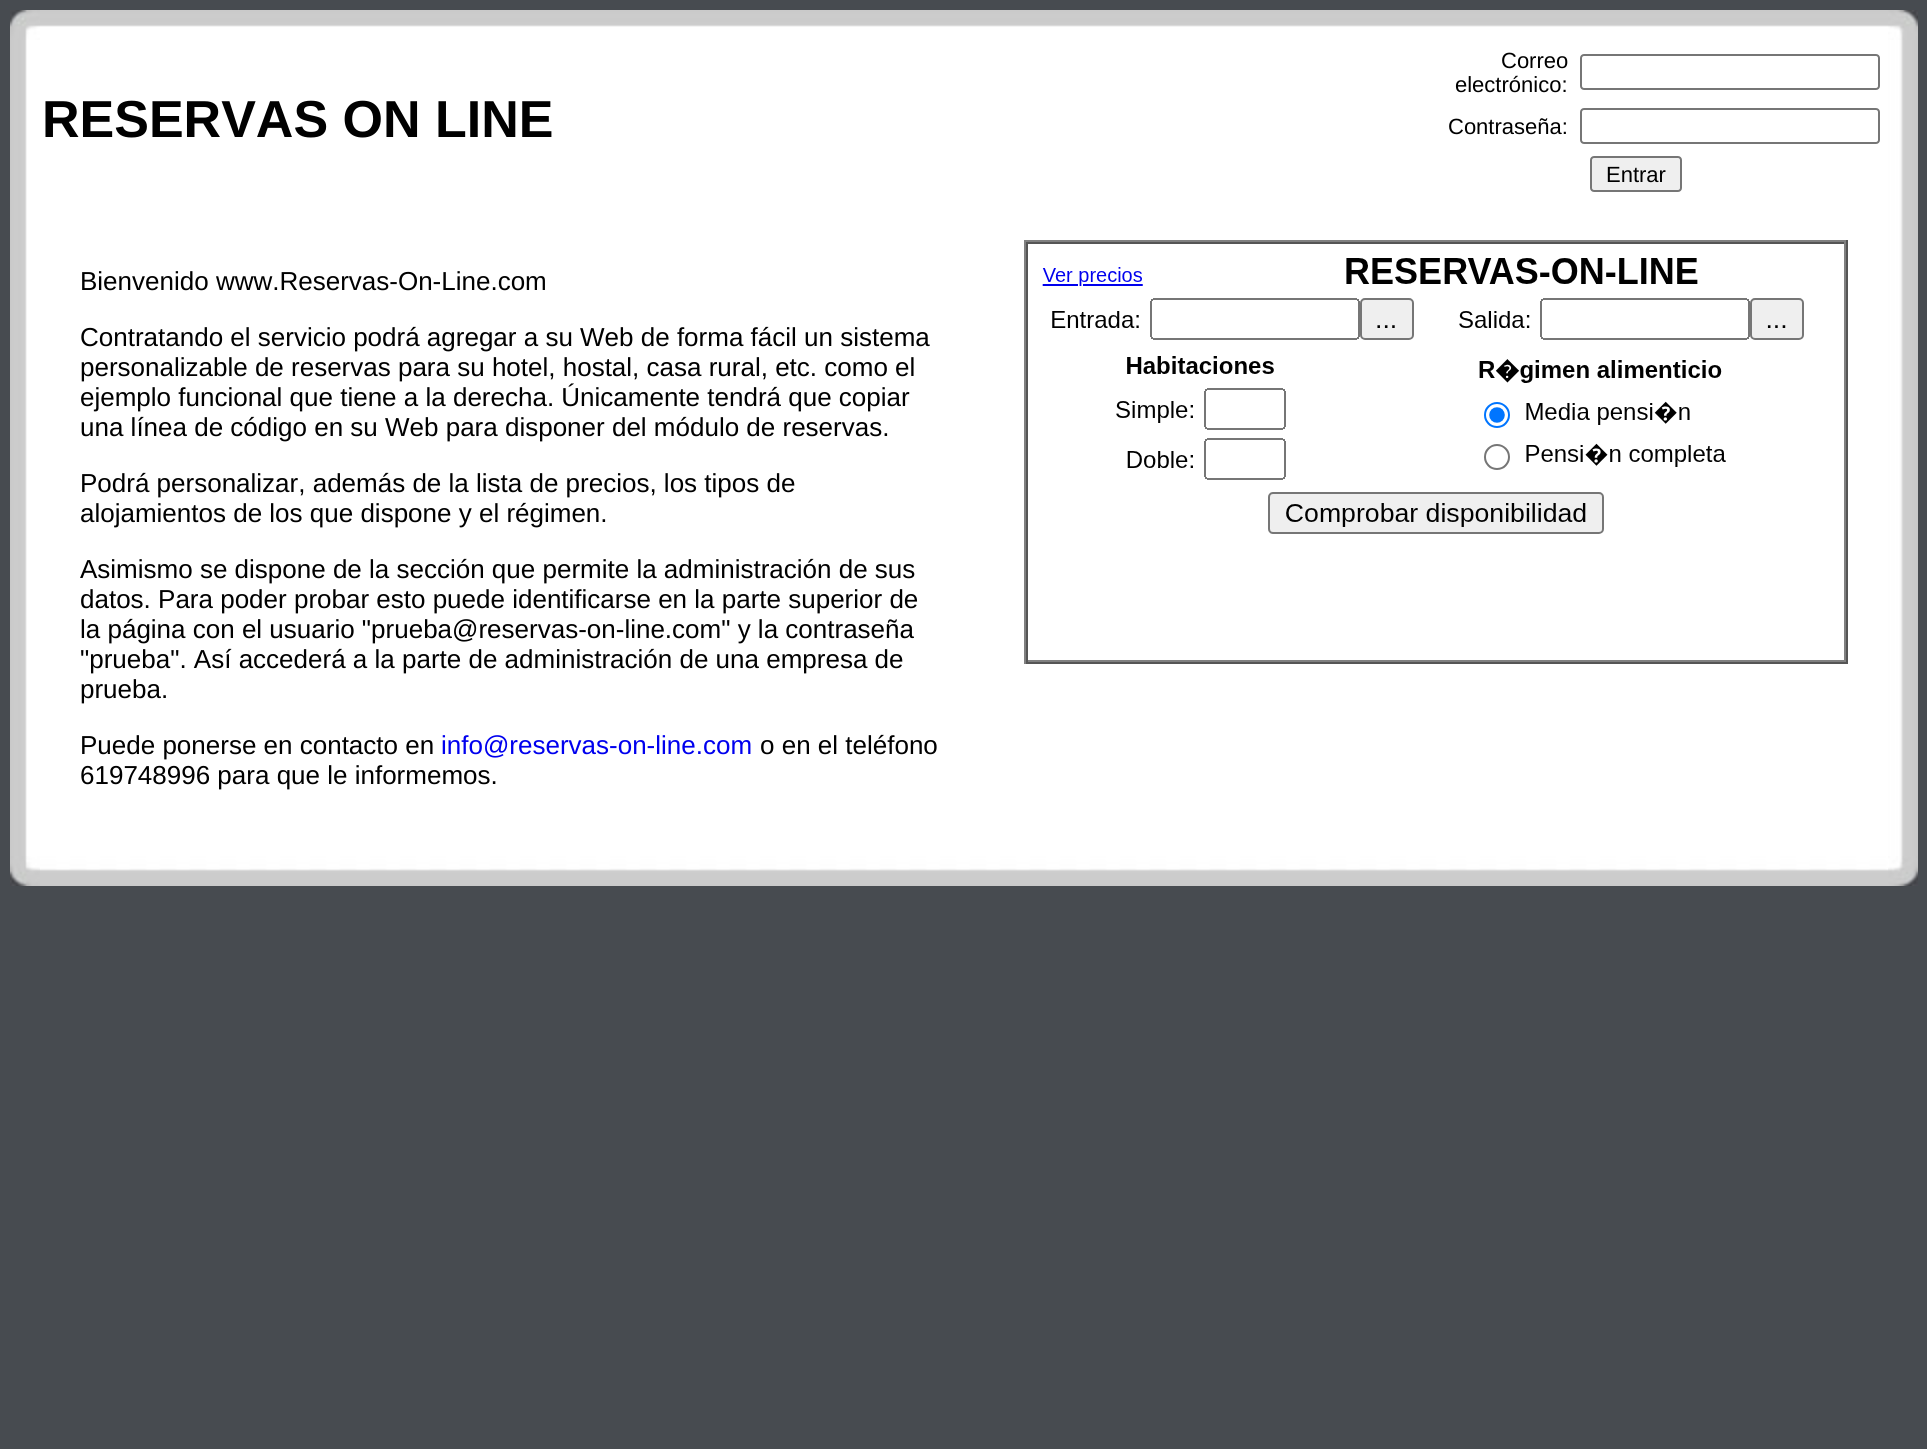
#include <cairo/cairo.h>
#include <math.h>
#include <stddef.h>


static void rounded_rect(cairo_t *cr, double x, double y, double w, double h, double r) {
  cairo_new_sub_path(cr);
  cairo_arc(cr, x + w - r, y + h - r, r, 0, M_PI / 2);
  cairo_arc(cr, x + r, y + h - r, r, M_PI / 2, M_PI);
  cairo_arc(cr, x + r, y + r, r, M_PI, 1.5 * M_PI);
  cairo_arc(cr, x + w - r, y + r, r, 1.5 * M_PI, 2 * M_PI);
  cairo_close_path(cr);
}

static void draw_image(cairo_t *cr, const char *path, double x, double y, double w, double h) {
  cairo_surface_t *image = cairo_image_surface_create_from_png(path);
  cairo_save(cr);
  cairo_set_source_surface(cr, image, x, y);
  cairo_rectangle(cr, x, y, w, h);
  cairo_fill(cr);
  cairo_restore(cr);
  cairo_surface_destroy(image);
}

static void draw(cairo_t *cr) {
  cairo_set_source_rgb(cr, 71 / 255.0, 75 / 255.0, 80 / 255.0);
  cairo_paint(cr);
  draw_image(cr, "images/1.png", 10, 10, 30, 30);
  draw_image(cr, "images/2.png", 40, 10, 1848, 30);
  draw_image(cr, "images/3.png", 1888, 10, 30, 30);
  draw_image(cr, "images/4.png", 10, 40, 30, 816);
  cairo_set_source_rgb(cr, 1, 1, 1);
  cairo_rectangle(cr, 40, 40, 1848, 816);
  cairo_fill(cr);
  rounded_rect(cr, 1581, 55, 298, 34, 3);
  cairo_set_source_rgb(cr, 118 / 255.0, 118 / 255.0, 118 / 255.0);
  cairo_stroke(cr);
  rounded_rect(cr, 1581, 109, 298, 34, 3);
  cairo_stroke(cr);
  cairo_set_source_rgb(cr, 239 / 255.0, 239 / 255.0, 239 / 255.0);
  rounded_rect(cr, 1591, 157, 90, 34, 3);
  cairo_fill_preserve(cr);
  cairo_set_source_rgb(cr, 118 / 255.0, 118 / 255.0, 118 / 255.0);
  cairo_stroke(cr);
  cairo_set_source_rgb(cr, 128 / 255.0, 128 / 255.0, 128 / 255.0);
  cairo_rectangle(cr, 1024, 240, 824, 2);
  cairo_fill(cr);
  cairo_set_source_rgb(cr, 85 / 255.0, 85 / 255.0, 85 / 255.0);
  cairo_rectangle(cr, 1846, 240, 2, 424);
  cairo_fill(cr);
  cairo_rectangle(cr, 1024, 662, 824, 2);
  cairo_fill(cr);
  cairo_set_source_rgb(cr, 128 / 255.0, 128 / 255.0, 128 / 255.0);
  cairo_rectangle(cr, 1024, 240, 2, 424);
  cairo_fill(cr);
  cairo_set_source_rgb(cr, 85 / 255.0, 85 / 255.0, 85 / 255.0);
  cairo_rectangle(cr, 1026, 242, 820, 2);
  cairo_fill(cr);
  cairo_set_source_rgb(cr, 128 / 255.0, 128 / 255.0, 128 / 255.0);
  cairo_rectangle(cr, 1844, 242, 2, 420);
  cairo_fill(cr);
  cairo_rectangle(cr, 1026, 660, 820, 2);
  cairo_fill(cr);
  cairo_set_source_rgb(cr, 85 / 255.0, 85 / 255.0, 85 / 255.0);
  cairo_rectangle(cr, 1026, 242, 2, 420);
  cairo_fill(cr);
  draw_image(cr, "images/5.png", 1042, 258, 762, 276);
  draw_image(cr, "images/6.png", 1888, 40, 30, 816);
  draw_image(cr, "images/7.png", 10, 856, 30, 30);
  draw_image(cr, "images/8.png", 40, 856, 1848, 30);
  draw_image(cr, "images/9.png", 1888, 856, 30, 30);
  cairo_select_font_face(cr, "Liberation Sans", CAIRO_FONT_SLANT_NORMAL, CAIRO_FONT_WEIGHT_BOLD);
  cairo_set_font_size(cr, 52);
  cairo_set_source_rgb(cr, 0, 0, 0);
  cairo_move_to(cr, 42, 137);
  cairo_show_text(cr, "RESERVAS ON LINE");
  cairo_select_font_face(cr, "Liberation Sans", CAIRO_FONT_SLANT_NORMAL, CAIRO_FONT_WEIGHT_NORMAL);
  cairo_set_font_size(cr, 22);
  cairo_move_to(cr, 1501, 68);
  cairo_show_text(cr, "Correo");
  cairo_move_to(cr, 1455, 92);
  cairo_show_text(cr, "electrónico:");
  cairo_move_to(cr, 1448, 134);
  cairo_show_text(cr, "Contraseña:");
  cairo_move_to(cr, 1606, 182);
  cairo_show_text(cr, "Entrar");
  cairo_set_font_size(cr, 26);
  cairo_move_to(cr, 80, 290);
  cairo_show_text(cr, "Bienvenido www.Reservas-On-Line.com");
  cairo_move_to(cr, 80, 346);
  cairo_show_text(cr, "Contratando el servicio podrá agregar a su Web de forma fácil un sistema");
  cairo_move_to(cr, 80, 376);
  cairo_show_text(cr, "personalizable de reservas para su hotel, hostal, casa rural, etc. como el");
  cairo_move_to(cr, 80, 406);
  cairo_show_text(cr, "ejemplo funcional que tiene a la derecha. Únicamente tendrá que copiar");
  cairo_move_to(cr, 80, 436);
  cairo_show_text(cr, "una línea de código en su Web para disponer del módulo de reservas.");
  cairo_move_to(cr, 80, 492);
  cairo_show_text(cr, "Podrá personalizar, además de la lista de precios, los tipos de");
  cairo_move_to(cr, 80, 522);
  cairo_show_text(cr, "alojamientos de los que dispone y el régimen.");
  cairo_move_to(cr, 80, 578);
  cairo_show_text(cr, "Asimismo se dispone de la sección que permite la administración de sus");
  cairo_move_to(cr, 80, 608);
  cairo_show_text(cr, "datos. Para poder probar esto puede identificarse en la parte superior de");
  cairo_move_to(cr, 80, 638);
  cairo_show_text(cr, "la página con el usuario \"prueba@reservas-on-line.com\" y la contraseña");
  cairo_move_to(cr, 80, 668);
  cairo_show_text(cr, "\"prueba\". Así accederá a la parte de administración de una empresa de");
  cairo_move_to(cr, 80, 698);
  cairo_show_text(cr, "prueba.");
  cairo_move_to(cr, 80, 754);
  cairo_show_text(cr, "Puede ponerse en contacto en");
  cairo_set_source_rgb(cr, 0, 0, 238 / 255.0);
  cairo_move_to(cr, 441, 754);
  cairo_show_text(cr, "info@reservas-on-line.com");
  cairo_set_source_rgb(cr, 0, 0, 0);
  cairo_move_to(cr, 760, 754);
  cairo_show_text(cr, "o en el teléfono");
  cairo_move_to(cr, 80, 784);
  cairo_show_text(cr, "619748996 para que le informemos.");
}

int main(void) {
  cairo_surface_t *surface = cairo_image_surface_create(CAIRO_FORMAT_RGB24, 1927, 1449);
  cairo_t *cr = cairo_create(surface);
  cairo_font_options_t *options = cairo_font_options_create();
  cairo_font_options_set_hint_metrics(options, CAIRO_HINT_METRICS_OFF);
  cairo_font_options_set_hint_style(options, CAIRO_HINT_STYLE_NONE);
  cairo_set_font_options(cr, options);
  cairo_set_miter_limit(cr, 4);
  draw(cr);
  cairo_surface_write_to_png(surface, "out.png");
  cairo_font_options_destroy(options);
  cairo_destroy(cr);
  cairo_surface_destroy(surface);
  return 0;
}
